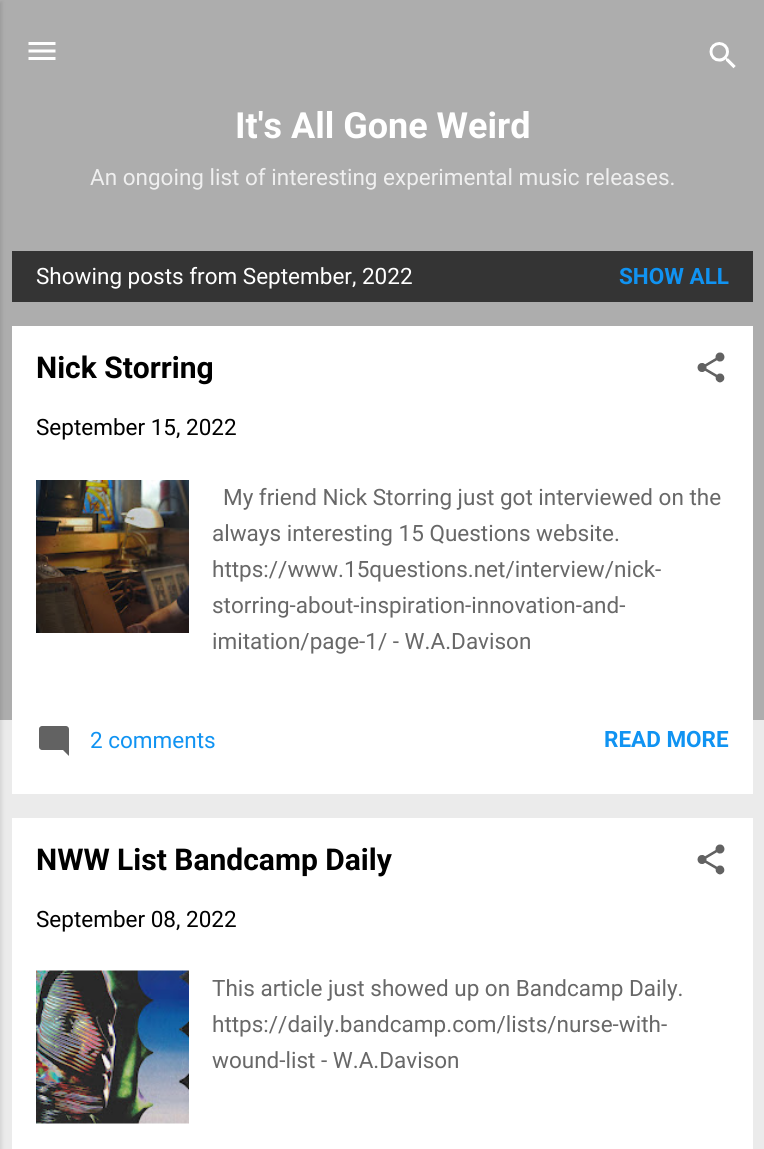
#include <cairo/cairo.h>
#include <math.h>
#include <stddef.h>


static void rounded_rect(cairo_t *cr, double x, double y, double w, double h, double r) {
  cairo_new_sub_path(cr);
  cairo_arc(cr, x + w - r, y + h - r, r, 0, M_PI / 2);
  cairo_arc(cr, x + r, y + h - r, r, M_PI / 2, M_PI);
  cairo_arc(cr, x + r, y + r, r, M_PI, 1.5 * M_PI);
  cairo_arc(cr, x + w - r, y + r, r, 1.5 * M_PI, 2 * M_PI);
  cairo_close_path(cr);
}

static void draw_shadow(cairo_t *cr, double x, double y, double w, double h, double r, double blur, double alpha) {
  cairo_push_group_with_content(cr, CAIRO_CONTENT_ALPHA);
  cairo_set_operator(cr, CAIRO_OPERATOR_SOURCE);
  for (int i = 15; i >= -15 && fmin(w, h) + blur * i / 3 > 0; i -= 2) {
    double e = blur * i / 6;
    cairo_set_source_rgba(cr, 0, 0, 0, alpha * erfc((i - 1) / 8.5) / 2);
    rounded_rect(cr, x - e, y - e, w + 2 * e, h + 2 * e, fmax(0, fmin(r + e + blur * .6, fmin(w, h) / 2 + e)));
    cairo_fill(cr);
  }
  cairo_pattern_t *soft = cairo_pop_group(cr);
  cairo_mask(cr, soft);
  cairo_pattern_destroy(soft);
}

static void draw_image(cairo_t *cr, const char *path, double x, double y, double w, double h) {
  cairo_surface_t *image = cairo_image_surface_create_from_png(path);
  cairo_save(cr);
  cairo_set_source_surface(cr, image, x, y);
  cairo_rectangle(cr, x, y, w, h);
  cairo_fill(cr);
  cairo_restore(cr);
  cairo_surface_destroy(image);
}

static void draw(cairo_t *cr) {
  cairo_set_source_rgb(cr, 235 / 255.0, 235 / 255.0, 235 / 255.0);
  cairo_paint(cr);
  cairo_set_source_rgb(cr, 173 / 255.0, 173 / 255.0, 173 / 255.0);
  cairo_rectangle(cr, 0, 0, 764, 720);
  cairo_fill(cr);
  cairo_set_source_rgb(cr, 0, 0, 0);
  draw_shadow(cr, -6, 2, 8, 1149, 0, 2, 0.1);
  draw_image(cr, "images/1.png", 28, 42, 28, 18);
  draw_image(cr, "images/2.png", 709, 42, 27, 27);
  cairo_set_source_rgb(cr, 52 / 255.0, 52 / 255.0, 52 / 255.0);
  cairo_rectangle(cr, 12, 251, 741, 51);
  cairo_fill(cr);
  cairo_set_source_rgb(cr, 1, 1, 1);
  cairo_rectangle(cr, 12, 326, 741, 468);
  cairo_fill(cr);
  draw_image(cr, "images/3.png", 697, 352, 28, 31);
  draw_image(cr, "images/4.png", 36, 480, 153, 153);
  draw_image(cr, "images/5.png", 39, 726, 30, 30);
  cairo_rectangle(cr, 12, 818, 741, 331);
  cairo_fill(cr);
  draw_image(cr, "images/3.png", 697, 844, 28, 31);
  draw_image(cr, "images/6.png", 36, 970, 153, 154);
  cairo_select_font_face(cr, "Roboto", CAIRO_FONT_SLANT_NORMAL, CAIRO_FONT_WEIGHT_BOLD);
  cairo_set_font_size(cr, 36);
  cairo_move_to(cr, 235, 138);
  cairo_show_text(cr, "It's All Gone Weird");
  cairo_select_font_face(cr, "Roboto", CAIRO_FONT_SLANT_NORMAL, CAIRO_FONT_WEIGHT_NORMAL);
  cairo_set_font_size(cr, 22.5);
  cairo_set_source_rgb(cr, 239 / 255.0, 239 / 255.0, 239 / 255.0);
  cairo_move_to(cr, 90, 185);
  cairo_show_text(cr, "An ongoing list of interesting experimental music releases.");
  cairo_set_source_rgb(cr, 1, 1, 1);
  cairo_move_to(cr, 36, 284);
  cairo_show_text(cr, "Showing posts from September, 2022");
  cairo_select_font_face(cr, "Roboto", CAIRO_FONT_SLANT_NORMAL, CAIRO_FONT_WEIGHT_BOLD);
  cairo_set_source_rgb(cr, 16 / 255.0, 147 / 255.0, 242 / 255.0);
  cairo_move_to(cr, 619, 284);
  cairo_show_text(cr, "SHOW ALL");
  cairo_set_font_size(cr, 30);
  cairo_set_source_rgb(cr, 0, 0, 0);
  cairo_move_to(cr, 36, 378);
  cairo_show_text(cr, "Nick Storring");
  cairo_select_font_face(cr, "Roboto", CAIRO_FONT_SLANT_NORMAL, CAIRO_FONT_WEIGHT_NORMAL);
  cairo_set_font_size(cr, 22.5);
  cairo_move_to(cr, 36, 435);
  cairo_show_text(cr, "September 15, 2022");
  cairo_set_source_rgb(cr, 104 / 255.0, 104 / 255.0, 104 / 255.0);
  cairo_move_to(cr, 223, 505);
  cairo_show_text(cr, "My friend Nick Storring just got interviewed on the");
  cairo_move_to(cr, 212, 541);
  cairo_show_text(cr, "always interesting 15 Questions website.");
  cairo_move_to(cr, 212, 577);
  cairo_show_text(cr, "https://www.15questions.net/interview/nick-");
  cairo_move_to(cr, 212, 613);
  cairo_show_text(cr, "storring-about-inspiration-innovation-and-");
  cairo_move_to(cr, 212, 649);
  cairo_show_text(cr, "imitation/page-1/ - W.A.Davison");
  cairo_set_source_rgb(cr, 16 / 255.0, 147 / 255.0, 242 / 255.0);
  cairo_move_to(cr, 90, 748);
  cairo_show_text(cr, "2 comments");
  cairo_select_font_face(cr, "Roboto", CAIRO_FONT_SLANT_NORMAL, CAIRO_FONT_WEIGHT_BOLD);
  cairo_move_to(cr, 604, 747);
  cairo_show_text(cr, "READ MORE");
  cairo_set_font_size(cr, 30);
  cairo_set_source_rgb(cr, 0, 0, 0);
  cairo_move_to(cr, 36, 870);
  cairo_show_text(cr, "NWW List Bandcamp Daily");
  cairo_select_font_face(cr, "Roboto", CAIRO_FONT_SLANT_NORMAL, CAIRO_FONT_WEIGHT_NORMAL);
  cairo_set_font_size(cr, 22.5);
  cairo_move_to(cr, 36, 927);
  cairo_show_text(cr, "September 08, 2022");
  cairo_set_source_rgb(cr, 104 / 255.0, 104 / 255.0, 104 / 255.0);
  cairo_move_to(cr, 212, 996);
  cairo_show_text(cr, "This article just showed up on Bandcamp Daily.");
  cairo_move_to(cr, 212, 1032);
  cairo_show_text(cr, "https://daily.bandcamp.com/lists/nurse-with-");
  cairo_move_to(cr, 212, 1068);
  cairo_show_text(cr, "wound-list - W.A.Davison");
}

int main(void) {
  cairo_surface_t *surface = cairo_image_surface_create(CAIRO_FORMAT_RGB24, 764, 1149);
  cairo_t *cr = cairo_create(surface);
  cairo_font_options_t *options = cairo_font_options_create();
  cairo_font_options_set_hint_metrics(options, CAIRO_HINT_METRICS_OFF);
  cairo_font_options_set_hint_style(options, CAIRO_HINT_STYLE_NONE);
  cairo_set_font_options(cr, options);
  cairo_set_miter_limit(cr, 4);
  draw(cr);
  cairo_surface_write_to_png(surface, "out.png");
  cairo_font_options_destroy(options);
  cairo_destroy(cr);
  cairo_surface_destroy(surface);
  return 0;
}
